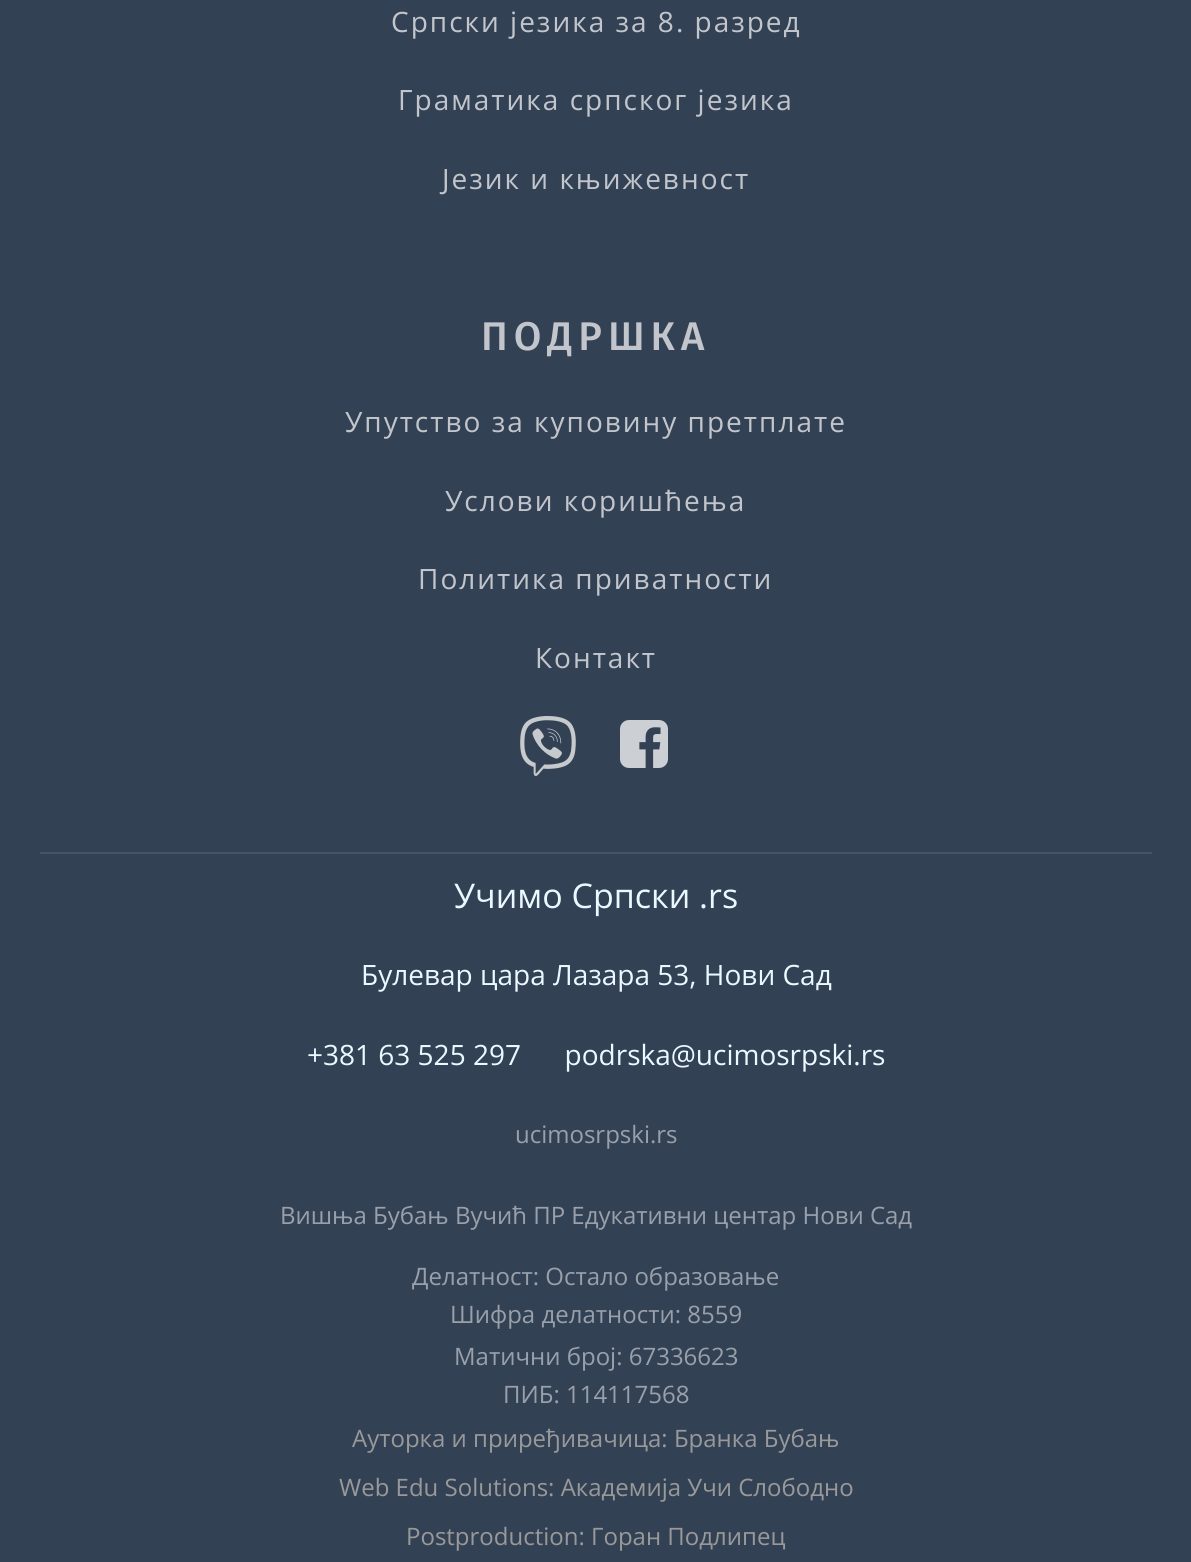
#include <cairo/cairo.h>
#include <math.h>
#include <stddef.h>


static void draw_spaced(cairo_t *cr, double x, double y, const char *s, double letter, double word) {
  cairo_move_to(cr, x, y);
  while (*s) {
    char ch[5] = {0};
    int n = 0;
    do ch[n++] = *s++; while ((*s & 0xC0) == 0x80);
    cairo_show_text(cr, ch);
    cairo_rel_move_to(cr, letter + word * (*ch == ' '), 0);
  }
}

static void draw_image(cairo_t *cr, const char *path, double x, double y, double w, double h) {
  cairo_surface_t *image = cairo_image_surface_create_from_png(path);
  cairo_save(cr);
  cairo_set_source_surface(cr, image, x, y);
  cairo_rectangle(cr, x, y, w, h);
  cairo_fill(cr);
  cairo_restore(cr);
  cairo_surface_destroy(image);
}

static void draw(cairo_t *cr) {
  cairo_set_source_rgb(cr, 51 / 255.0, 65 / 255.0, 85 / 255.0);
  cairo_paint(cr);
  cairo_set_source_rgb(cr, 71 / 255.0, 84 / 255.0, 102 / 255.0);
  cairo_rectangle(cr, 40, 852, 1112, 2);
  cairo_fill(cr);
  draw_image(cr, "images/1.png", 520, 716, 56, 60);
  draw_image(cr, "images/2.png", 620, 720, 48, 48);
  cairo_select_font_face(cr, "Open Sans", CAIRO_FONT_SLANT_NORMAL, CAIRO_FONT_WEIGHT_NORMAL);
  cairo_set_font_size(cr, 28);
  cairo_set_source_rgb(cr, 194 / 255.0, 198 / 255.0, 204 / 255.0);
  draw_spaced(cr, 391, 32, "Српски језика за 8. разред", 2, 0);
  draw_spaced(cr, 398, 110, "Граматика српског језика", 2, 0);
  draw_spaced(cr, 442, 189, "Језик и књижевност", 2, 0);
  cairo_select_font_face(cr, "Fira Sans Medium", CAIRO_FONT_SLANT_NORMAL, CAIRO_FONT_WEIGHT_NORMAL);
  cairo_set_font_size(cr, 40);
  draw_spaced(cr, 481, 350, "ПОДРШКА", 6, 0);
  cairo_select_font_face(cr, "Open Sans", CAIRO_FONT_SLANT_NORMAL, CAIRO_FONT_WEIGHT_NORMAL);
  cairo_set_font_size(cr, 28);
  draw_spaced(cr, 345, 432, "Упутство за куповину претплате", 2, 0);
  draw_spaced(cr, 445, 511, "Услови коришћења", 2, 0);
  draw_spaced(cr, 418, 589, "Политика приватности", 2, 0);
  draw_spaced(cr, 535, 668, "Контакт", 2, 0);
  cairo_set_font_size(cr, 34);
  cairo_set_source_rgb(cr, 234 / 255.0, 248 / 255.0, 1);
  cairo_move_to(cr, 454, 908);
  cairo_show_text(cr, "Учимо Српски .rs");
  cairo_set_font_size(cr, 28);
  cairo_move_to(cr, 361, 985);
  cairo_show_text(cr, "Булевар цара Лазара 53, Нови Сад");
  cairo_move_to(cr, 307, 1065);
  cairo_show_text(cr, "+381 63 525 297      podrska@ucimosrpski.rs");
  cairo_set_font_size(cr, 24);
  cairo_set_source_rgb(cr, 153 / 255.0, 160 / 255.0, 170 / 255.0);
  cairo_move_to(cr, 515, 1143);
  cairo_show_text(cr, "ucimosrpski.rs");
  cairo_move_to(cr, 280, 1224);
  cairo_show_text(cr, "Вишња Бубањ Вучић ПР Едукативни центар Нови Сад");
  cairo_move_to(cr, 412, 1285);
  cairo_show_text(cr, "Делатност: Остало образовање");
  cairo_move_to(cr, 450, 1323);
  cairo_show_text(cr, "Шифра делатности: 8559");
  cairo_move_to(cr, 454, 1365);
  cairo_show_text(cr, "Матични број: 67336623");
  cairo_move_to(cr, 503, 1403);
  cairo_show_text(cr, "ПИБ: 114117568");
  cairo_set_source_rgb(cr, 153 / 255.0, 153 / 255.0, 153 / 255.0);
  cairo_move_to(cr, 352, 1447);
  cairo_show_text(cr, "Ауторка и приређивачица: Бранка Бубањ");
  cairo_move_to(cr, 339, 1496);
  cairo_show_text(cr, "Web Edu Solutions: Академија Учи Слободно");
  cairo_move_to(cr, 406, 1545);
  cairo_show_text(cr, "Postproduction: Горан Подлипец");
}

int main(void) {
  cairo_surface_t *surface = cairo_image_surface_create(CAIRO_FORMAT_RGB24, 1191, 1562);
  cairo_t *cr = cairo_create(surface);
  cairo_font_options_t *options = cairo_font_options_create();
  cairo_font_options_set_hint_metrics(options, CAIRO_HINT_METRICS_OFF);
  cairo_font_options_set_hint_style(options, CAIRO_HINT_STYLE_NONE);
  cairo_set_font_options(cr, options);
  cairo_set_miter_limit(cr, 4);
  draw(cr);
  cairo_surface_write_to_png(surface, "out.png");
  cairo_font_options_destroy(options);
  cairo_destroy(cr);
  cairo_surface_destroy(surface);
  return 0;
}
